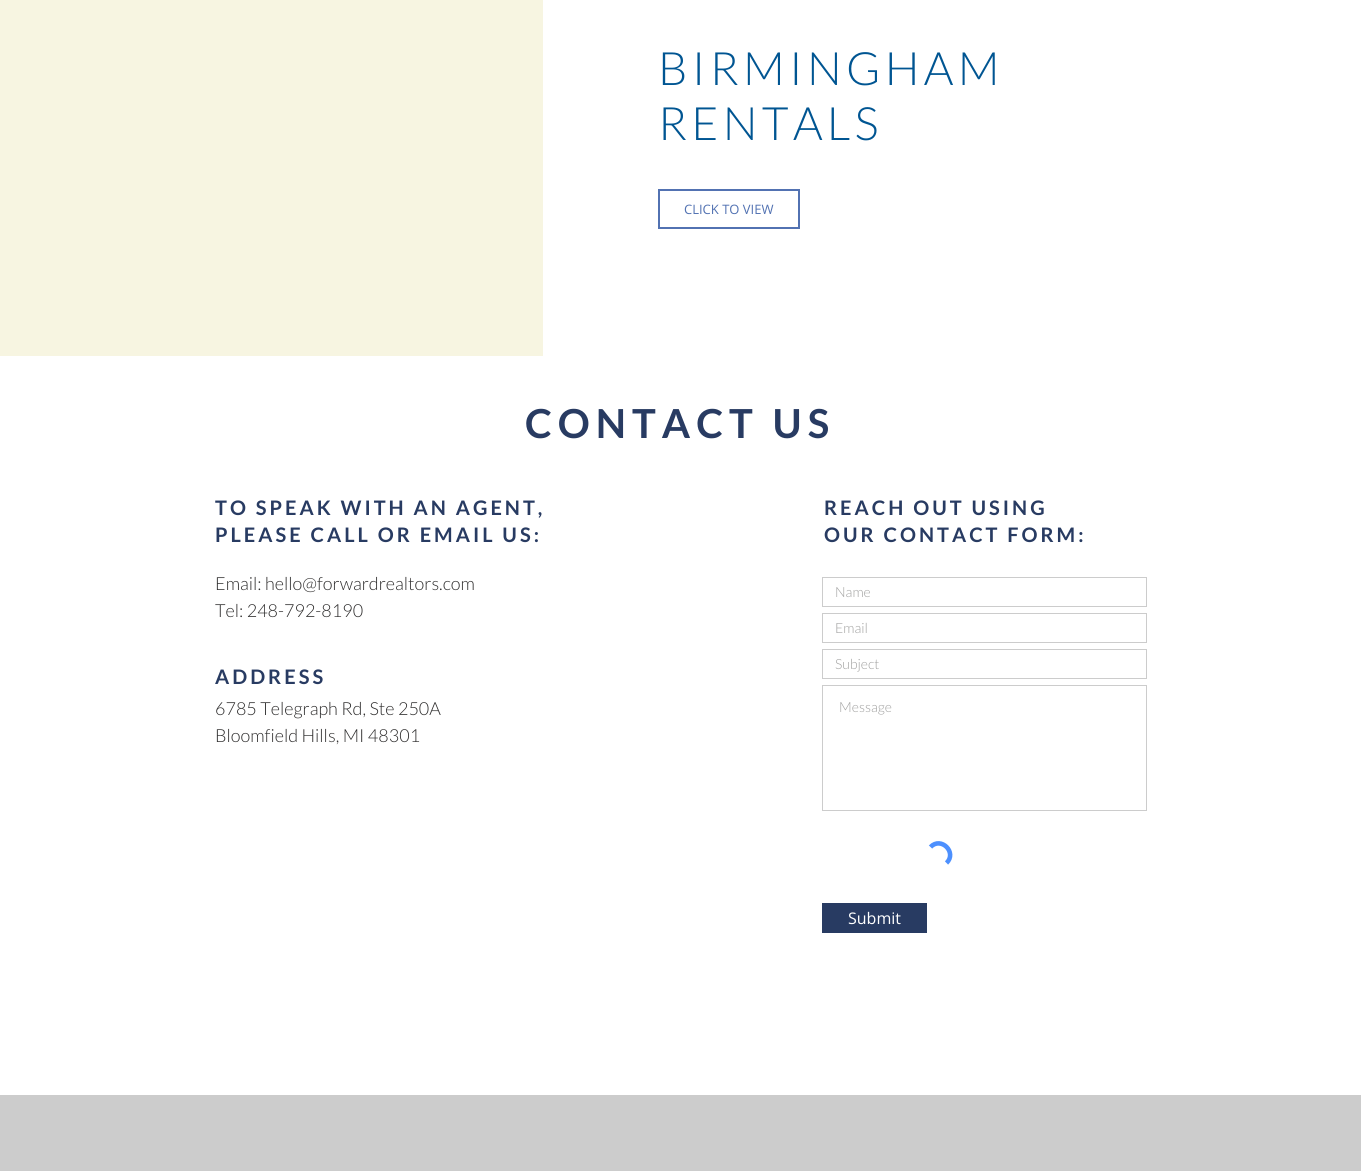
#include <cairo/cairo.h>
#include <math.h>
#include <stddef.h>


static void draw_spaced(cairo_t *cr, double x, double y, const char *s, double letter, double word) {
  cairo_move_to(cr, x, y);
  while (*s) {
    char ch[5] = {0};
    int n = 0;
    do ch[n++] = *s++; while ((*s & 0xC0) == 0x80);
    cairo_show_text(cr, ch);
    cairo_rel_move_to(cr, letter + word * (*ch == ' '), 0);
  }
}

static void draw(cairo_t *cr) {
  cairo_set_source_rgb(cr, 204 / 255.0, 204 / 255.0, 204 / 255.0);
  cairo_paint(cr);
  cairo_set_source_rgb(cr, 247 / 255.0, 245 / 255.0, 225 / 255.0);
  cairo_rectangle(cr, 0, 0, 543, 356);
  cairo_fill(cr);
  cairo_set_source_rgb(cr, 1, 1, 1);
  cairo_rectangle(cr, 543, 0, 818, 356);
  cairo_fill(cr);
  cairo_rectangle(cr, 659, 190, 140, 38);
  cairo_set_source_rgb(cr, 82 / 255.0, 114 / 255.0, 178 / 255.0);
  cairo_stroke(cr);
  cairo_set_source_rgb(cr, 1, 1, 1);
  cairo_rectangle(cr, 0, 356, 1361, 739);
  cairo_fill(cr);
  cairo_rectangle(cr, 822.5, 577.5, 324, 29);
  cairo_set_source_rgb(cr, 204 / 255.0, 204 / 255.0, 204 / 255.0);
  cairo_set_line_width(cr, 1);
  cairo_stroke(cr);
  cairo_rectangle(cr, 822.5, 613.5, 324, 29);
  cairo_stroke(cr);
  cairo_rectangle(cr, 822.5, 649.5, 324, 29);
  cairo_stroke(cr);
  cairo_rectangle(cr, 822.5, 685.5, 324, 125);
  cairo_stroke(cr);
  cairo_new_path(cr);
  cairo_move_to(cr, 930.5, 847);
  cairo_curve_to(cr, 941, 836, 957.5, 852.5, 946.5, 863);
  cairo_set_source_rgb(cr, 77 / 255.0, 144 / 255.0, 254 / 255.0);
  cairo_set_line_width(cr, 4.6);
  cairo_stroke(cr);
  cairo_set_source_rgb(cr, 40 / 255.0, 59 / 255.0, 98 / 255.0);
  cairo_rectangle(cr, 822, 903, 105, 30);
  cairo_fill(cr);
  cairo_select_font_face(cr, "Lato Light", CAIRO_FONT_SLANT_NORMAL, CAIRO_FONT_WEIGHT_NORMAL);
  cairo_set_font_size(cr, 46);
  cairo_set_source_rgb(cr, 0, 85 / 255.0, 146 / 255.0);
  draw_spaced(cr, 658, 85, "BIRMINGHAM", 4.25, 0);
  draw_spaced(cr, 658, 140, "RENTALS", 4.25, 0);
  cairo_select_font_face(cr, "Open Sans", CAIRO_FONT_SLANT_NORMAL, CAIRO_FONT_WEIGHT_NORMAL);
  cairo_set_font_size(cr, 13);
  cairo_set_source_rgb(cr, 82 / 255.0, 114 / 255.0, 178 / 255.0);
  cairo_move_to(cr, 684, 214);
  cairo_show_text(cr, "CLICK TO VIEW");
  cairo_select_font_face(cr, "Lato", CAIRO_FONT_SLANT_NORMAL, CAIRO_FONT_WEIGHT_BOLD);
  cairo_set_font_size(cr, 40);
  cairo_set_source_rgb(cr, 40 / 255.0, 59 / 255.0, 98 / 255.0);
  draw_spaced(cr, 525, 438, "CONTACT US", 6, 0);
  cairo_set_font_size(cr, 20);
  draw_spaced(cr, 215, 515, "TO SPEAK WITH AN AGENT,", 3, 0);
  draw_spaced(cr, 215, 542, "PLEASE CALL OR EMAIL US:", 3, 0);
  draw_spaced(cr, 824, 515, "REACH OUT USING", 3, 0);
  draw_spaced(cr, 824, 542, "OUR CONTACT FORM:", 3, 0);
  cairo_select_font_face(cr, "Lato Light", CAIRO_FONT_SLANT_NORMAL, CAIRO_FONT_WEIGHT_NORMAL);
  cairo_set_font_size(cr, 18);
  cairo_set_source_rgb(cr, 47 / 255.0, 46 / 255.0, 46 / 255.0);
  cairo_move_to(cr, 215, 590);
  cairo_show_text(cr, "Email: hello@forwardrealtors.com");
  cairo_move_to(cr, 215, 617);
  cairo_show_text(cr, "Tel: 248-792-8190");
  cairo_set_font_size(cr, 14);
  cairo_set_source_rgb(cr, 160 / 255.0, 160 / 255.0, 159 / 255.0);
  cairo_move_to(cr, 835, 597);
  cairo_show_text(cr, "Name");
  cairo_move_to(cr, 835, 633);
  cairo_show_text(cr, "Email");
  cairo_move_to(cr, 835, 669);
  cairo_show_text(cr, "Subject");
  cairo_move_to(cr, 839, 712);
  cairo_show_text(cr, "Message");
  cairo_select_font_face(cr, "Open Sans", CAIRO_FONT_SLANT_NORMAL, CAIRO_FONT_WEIGHT_NORMAL);
  cairo_set_font_size(cr, 16);
  cairo_set_source_rgb(cr, 1, 1, 1);
  cairo_move_to(cr, 848, 924);
  cairo_show_text(cr, "Submit");
  cairo_select_font_face(cr, "Lato", CAIRO_FONT_SLANT_NORMAL, CAIRO_FONT_WEIGHT_BOLD);
  cairo_set_font_size(cr, 20);
  cairo_set_source_rgb(cr, 40 / 255.0, 59 / 255.0, 98 / 255.0);
  draw_spaced(cr, 215, 684, "ADDRESS", 3, 0);
  cairo_select_font_face(cr, "Lato Light", CAIRO_FONT_SLANT_NORMAL, CAIRO_FONT_WEIGHT_NORMAL);
  cairo_set_font_size(cr, 18);
  cairo_set_source_rgb(cr, 47 / 255.0, 46 / 255.0, 46 / 255.0);
  cairo_move_to(cr, 215, 715);
  cairo_show_text(cr, "6785 Telegraph Rd, Ste 250A");
  cairo_move_to(cr, 215, 742);
  cairo_show_text(cr, "Bloomfield Hills, MI 48301");
}

int main(void) {
  cairo_surface_t *surface = cairo_image_surface_create(CAIRO_FORMAT_RGB24, 1361, 1171);
  cairo_t *cr = cairo_create(surface);
  cairo_font_options_t *options = cairo_font_options_create();
  cairo_font_options_set_hint_metrics(options, CAIRO_HINT_METRICS_OFF);
  cairo_font_options_set_hint_style(options, CAIRO_HINT_STYLE_NONE);
  cairo_set_font_options(cr, options);
  cairo_set_miter_limit(cr, 4);
  draw(cr);
  cairo_surface_write_to_png(surface, "out.png");
  cairo_font_options_destroy(options);
  cairo_destroy(cr);
  cairo_surface_destroy(surface);
  return 0;
}
